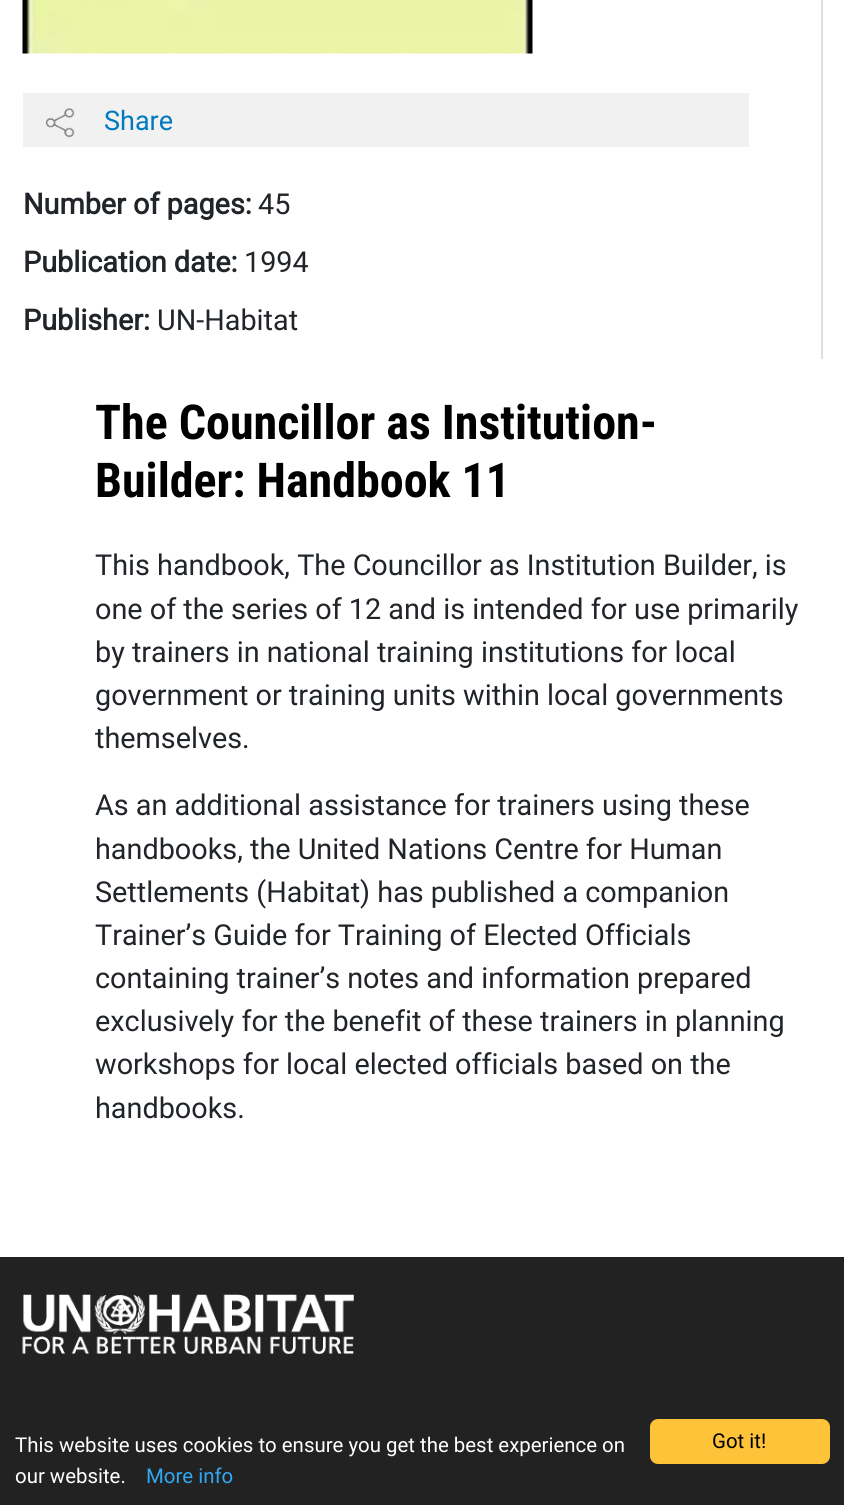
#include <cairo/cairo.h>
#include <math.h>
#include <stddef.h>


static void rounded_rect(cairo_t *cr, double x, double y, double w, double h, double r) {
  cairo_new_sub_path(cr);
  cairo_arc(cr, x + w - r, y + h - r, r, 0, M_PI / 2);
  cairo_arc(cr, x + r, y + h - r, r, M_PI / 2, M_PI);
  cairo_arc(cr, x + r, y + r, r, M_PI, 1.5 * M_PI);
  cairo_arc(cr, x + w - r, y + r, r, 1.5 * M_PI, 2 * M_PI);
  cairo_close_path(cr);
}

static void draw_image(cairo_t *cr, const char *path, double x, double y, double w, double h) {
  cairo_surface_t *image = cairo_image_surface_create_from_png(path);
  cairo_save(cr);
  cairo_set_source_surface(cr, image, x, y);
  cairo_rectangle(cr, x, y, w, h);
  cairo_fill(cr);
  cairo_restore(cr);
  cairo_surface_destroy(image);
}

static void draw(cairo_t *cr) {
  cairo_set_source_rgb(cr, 1, 1, 1);
  cairo_paint(cr);
  cairo_set_source_rgb(cr, 223 / 255.0, 223 / 255.0, 223 / 255.0);
  cairo_rectangle(cr, 821, 0, 2, 359);
  cairo_fill(cr);
  draw_image(cr, "images/1.png", 22, 0, 511, 54);
  cairo_set_source_rgb(cr, 241 / 255.0, 241 / 255.0, 242 / 255.0);
  cairo_rectangle(cr, 23, 93, 726, 54);
  cairo_fill(cr);
  draw_image(cr, "images/2.png", 45, 108, 30, 30);
  cairo_set_source_rgb(cr, 34 / 255.0, 34 / 255.0, 34 / 255.0);
  cairo_rectangle(cr, 0, 1257, 844, 248);
  cairo_fill(cr);
  draw_image(cr, "images/3.png", 22, 1294, 332, 60);
  cairo_set_source_rgb(cr, 254 / 255.0, 195 / 255.0, 57 / 255.0);
  rounded_rect(cr, 650, 1419, 180, 45, 8);
  cairo_fill(cr);
  cairo_select_font_face(cr, "Roboto", CAIRO_FONT_SLANT_NORMAL, CAIRO_FONT_WEIGHT_NORMAL);
  cairo_set_font_size(cr, 27);
  cairo_set_source_rgb(cr, 0, 121 / 255.0, 192 / 255.0);
  cairo_move_to(cr, 104, 130);
  cairo_show_text(cr, "Share");
  cairo_select_font_face(cr, "Roboto", CAIRO_FONT_SLANT_NORMAL, CAIRO_FONT_WEIGHT_BOLD);
  cairo_set_font_size(cr, 28.8);
  cairo_set_source_rgb(cr, 33 / 255.0, 37 / 255.0, 41 / 255.0);
  cairo_move_to(cr, 23, 214);
  cairo_show_text(cr, "Number of pages:");
  cairo_select_font_face(cr, "Roboto", CAIRO_FONT_SLANT_NORMAL, CAIRO_FONT_WEIGHT_NORMAL);
  cairo_move_to(cr, 258, 214);
  cairo_show_text(cr, "45");
  cairo_select_font_face(cr, "Roboto", CAIRO_FONT_SLANT_NORMAL, CAIRO_FONT_WEIGHT_BOLD);
  cairo_move_to(cr, 23, 272);
  cairo_show_text(cr, "Publication date:");
  cairo_select_font_face(cr, "Roboto", CAIRO_FONT_SLANT_NORMAL, CAIRO_FONT_WEIGHT_NORMAL);
  cairo_move_to(cr, 244, 272);
  cairo_show_text(cr, "1994");
  cairo_select_font_face(cr, "Roboto", CAIRO_FONT_SLANT_NORMAL, CAIRO_FONT_WEIGHT_BOLD);
  cairo_move_to(cr, 23, 330);
  cairo_show_text(cr, "Publisher:");
  cairo_select_font_face(cr, "Roboto", CAIRO_FONT_SLANT_NORMAL, CAIRO_FONT_WEIGHT_NORMAL);
  cairo_move_to(cr, 157, 330);
  cairo_show_text(cr, "UN-Habitat");
  cairo_select_font_face(cr, "Roboto Condensed", CAIRO_FONT_SLANT_NORMAL, CAIRO_FONT_WEIGHT_BOLD);
  cairo_set_font_size(cr, 48);
  cairo_set_source_rgb(cr, 0, 0, 0);
  cairo_move_to(cr, 95, 439);
  cairo_show_text(cr, "The Councillor as Institution-");
  cairo_move_to(cr, 95, 497);
  cairo_show_text(cr, "Builder: Handbook 11");
  cairo_select_font_face(cr, "Roboto", CAIRO_FONT_SLANT_NORMAL, CAIRO_FONT_WEIGHT_NORMAL);
  cairo_set_font_size(cr, 28.8);
  cairo_set_source_rgb(cr, 33 / 255.0, 37 / 255.0, 41 / 255.0);
  cairo_move_to(cr, 95, 575);
  cairo_show_text(cr, "This handbook, The Councillor as Institution Builder, is");
  cairo_move_to(cr, 95, 619);
  cairo_show_text(cr, "one of the series of 12 and is intended for use primarily");
  cairo_move_to(cr, 95, 662);
  cairo_show_text(cr, "by trainers in national training institutions for local");
  cairo_move_to(cr, 95, 705);
  cairo_show_text(cr, "government or training units within local governments");
  cairo_move_to(cr, 95, 748);
  cairo_show_text(cr, "themselves.");
  cairo_move_to(cr, 95, 815);
  cairo_show_text(cr, "As an additional assistance for trainers using these");
  cairo_move_to(cr, 95, 859);
  cairo_show_text(cr, "handbooks, the United Nations Centre for Human");
  cairo_move_to(cr, 95, 902);
  cairo_show_text(cr, "Settlements (Habitat) has published a companion");
  cairo_move_to(cr, 95, 945);
  cairo_show_text(cr, "Trainer’s Guide for Training of Elected Officials");
  cairo_move_to(cr, 95, 988);
  cairo_show_text(cr, "containing trainer’s notes and information prepared");
  cairo_move_to(cr, 95, 1031);
  cairo_show_text(cr, "exclusively for the benefit of these trainers in planning");
  cairo_move_to(cr, 95, 1074);
  cairo_show_text(cr, "workshops for local elected officials based on the");
  cairo_move_to(cr, 95, 1118);
  cairo_show_text(cr, "handbooks.");
  cairo_set_font_size(cr, 20.4);
  cairo_set_source_rgb(cr, 1, 1, 1);
  cairo_move_to(cr, 15, 1452);
  cairo_show_text(cr, "This website uses cookies to ensure you get the best experience on");
  cairo_move_to(cr, 15, 1483);
  cairo_show_text(cr, "our website.");
  cairo_set_source_rgb(cr, 49 / 255.0, 168 / 255.0, 240 / 255.0);
  cairo_move_to(cr, 146, 1483);
  cairo_show_text(cr, "More info");
  cairo_set_source_rgb(cr, 0, 0, 0);
  cairo_move_to(cr, 712, 1448);
  cairo_show_text(cr, "Got it!");
}

int main(void) {
  cairo_surface_t *surface = cairo_image_surface_create(CAIRO_FORMAT_RGB24, 844, 1505);
  cairo_t *cr = cairo_create(surface);
  cairo_font_options_t *options = cairo_font_options_create();
  cairo_font_options_set_hint_metrics(options, CAIRO_HINT_METRICS_OFF);
  cairo_font_options_set_hint_style(options, CAIRO_HINT_STYLE_NONE);
  cairo_set_font_options(cr, options);
  cairo_set_miter_limit(cr, 4);
  draw(cr);
  cairo_surface_write_to_png(surface, "out.png");
  cairo_font_options_destroy(options);
  cairo_destroy(cr);
  cairo_surface_destroy(surface);
  return 0;
}
